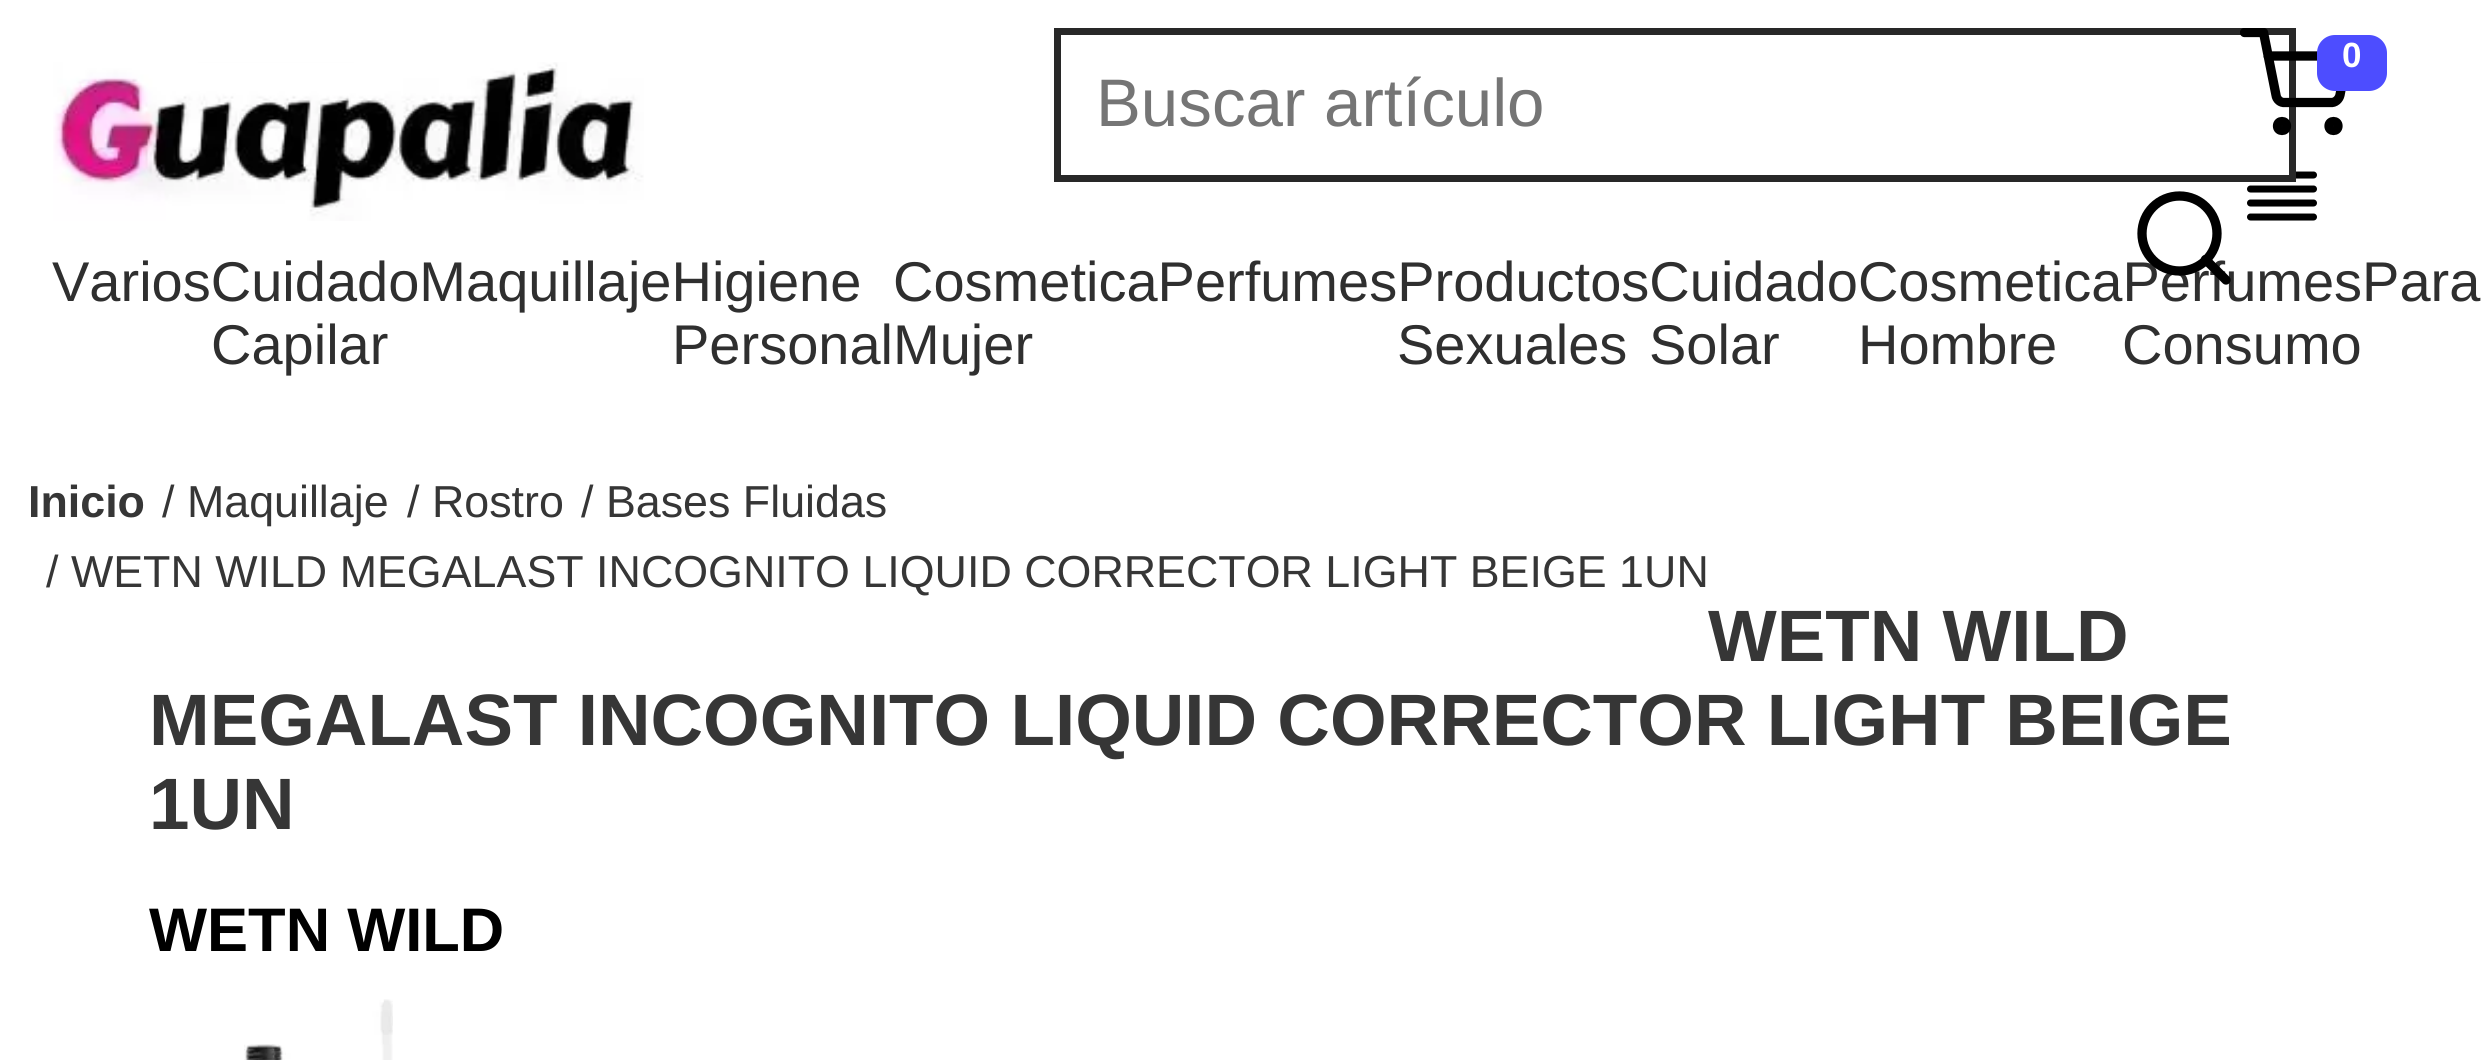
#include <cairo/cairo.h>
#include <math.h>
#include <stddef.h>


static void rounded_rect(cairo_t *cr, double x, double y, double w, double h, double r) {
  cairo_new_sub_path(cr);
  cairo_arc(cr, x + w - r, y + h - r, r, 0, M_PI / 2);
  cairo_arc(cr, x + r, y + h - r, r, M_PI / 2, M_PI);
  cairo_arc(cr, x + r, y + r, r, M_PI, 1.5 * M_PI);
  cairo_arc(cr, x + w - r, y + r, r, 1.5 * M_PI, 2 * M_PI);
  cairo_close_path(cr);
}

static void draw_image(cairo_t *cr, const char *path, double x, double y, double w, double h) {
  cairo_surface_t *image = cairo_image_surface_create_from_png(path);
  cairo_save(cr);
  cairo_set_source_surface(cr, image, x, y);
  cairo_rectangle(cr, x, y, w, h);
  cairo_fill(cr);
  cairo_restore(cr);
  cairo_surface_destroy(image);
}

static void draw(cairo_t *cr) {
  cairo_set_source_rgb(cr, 1, 1, 1);
  cairo_paint(cr);
  cairo_new_path(cr);
  cairo_move_to(cr, 2313.5, 175);
  cairo_line_to(cr, 2250.5, 175);
  cairo_set_source_rgb(cr, 0, 0, 0);
  cairo_set_line_width(cr, 7);
  cairo_set_line_cap(cr, CAIRO_LINE_CAP_ROUND);
  cairo_set_line_join(cr, CAIRO_LINE_JOIN_ROUND);
  cairo_stroke(cr);
  cairo_set_source_rgb(cr, 1, 1, 1);
  cairo_rectangle(cr, 2247, 171, 42, 4);
  cairo_fill(cr);
  cairo_rectangle(cr, 1057.5, 31.5, 1235, 147);
  cairo_set_source_rgb(cr, 40 / 255.0, 40 / 255.0, 40 / 255.0);
  cairo_set_line_cap(cr, CAIRO_LINE_CAP_BUTT);
  cairo_set_line_join(cr, CAIRO_LINE_JOIN_MITER);
  cairo_stroke(cr);
  cairo_save(cr);
  cairo_rectangle(cr, 2240, 28, 112, 112);
  cairo_clip(cr);
  cairo_new_path(cr);
  cairo_move_to(cr, 2244.5, 32.5);
  cairo_line_to(cr, 2263.5, 32.5);
  cairo_line_to(cr, 2276, 95);
  cairo_curve_to(cr, 2276.5, 99.5, 2280.5, 103, 2285, 102.5);
  cairo_line_to(cr, 2330.5, 102.5);
  cairo_curve_to(cr, 2335, 103, 2339, 99.5, 2340, 95);
  cairo_line_to(cr, 2347.5, 56);
  cairo_line_to(cr, 2268, 56);
  cairo_set_source_rgb(cr, 0, 0, 0);
  cairo_set_line_width(cr, 9.3);
  cairo_set_line_cap(cr, CAIRO_LINE_CAP_ROUND);
  cairo_set_line_join(cr, CAIRO_LINE_JOIN_ROUND);
  cairo_stroke(cr);
  cairo_restore(cr);
  cairo_set_source_rgb(cr, 77 / 255.0, 77 / 255.0, 1);
  rounded_rect(cr, 2317, 35, 70, 56, 18);
  cairo_fill(cr);
  cairo_arc(cr, 2282, 126, 4.5, 0, 2 * M_PI);
  cairo_set_source_rgb(cr, 0, 0, 0);
  cairo_set_line_width(cr, 9.3);
  cairo_stroke(cr);
  cairo_arc(cr, 2333.5, 126, 4.5, 0, 2 * M_PI);
  cairo_stroke(cr);
  cairo_new_path(cr);
  cairo_move_to(cr, 2313.5, 189);
  cairo_line_to(cr, 2250.5, 189);
  cairo_set_line_width(cr, 7);
  cairo_set_line_cap(cr, CAIRO_LINE_CAP_ROUND);
  cairo_set_line_join(cr, CAIRO_LINE_JOIN_ROUND);
  cairo_stroke(cr);
  cairo_new_path(cr);
  cairo_move_to(cr, 2313.5, 203);
  cairo_line_to(cr, 2250.5, 203);
  cairo_stroke(cr);
  cairo_new_path(cr);
  cairo_move_to(cr, 2313.5, 217);
  cairo_line_to(cr, 2250.5, 217);
  cairo_stroke(cr);
  draw_image(cr, "images/1.png", 53, 62, 591, 159);
  draw_image(cr, "images/2.png", 244, 999, 149, 61);
  cairo_select_font_face(cr, "Liberation Sans", CAIRO_FONT_SLANT_NORMAL, CAIRO_FONT_WEIGHT_BOLD);
  cairo_set_font_size(cr, 35);
  cairo_set_source_rgb(cr, 1, 1, 1);
  cairo_move_to(cr, 2342, 67);
  cairo_show_text(cr, "0");
  cairo_select_font_face(cr, "Liberation Sans", CAIRO_FONT_SLANT_NORMAL, CAIRO_FONT_WEIGHT_NORMAL);
  cairo_set_font_size(cr, 67.25);
  cairo_set_source_rgb(cr, 117 / 255.0, 117 / 255.0, 117 / 255.0);
  cairo_move_to(cr, 1096, 126);
  cairo_show_text(cr, "Buscar artículo");
  cairo_set_font_size(cr, 56);
  cairo_set_source_rgb(cr, 47 / 255.0, 47 / 255.0, 47 / 255.0);
  cairo_move_to(cr, 52, 301);
  cairo_show_text(cr, "VariosCuidadoMaquillajeHigiene");
  cairo_move_to(cr, 893, 301);
  cairo_show_text(cr, "CosmeticaPerfumesProductosCuidadoCosmeticaPerfumesPara");
  cairo_new_path(cr);
  cairo_arc(cr, 2179.5, 233.5, 37.5, 0, 2 * M_PI);
  cairo_set_source_rgb(cr, 0, 0, 0);
  cairo_set_line_width(cr, 9.3);
  cairo_set_line_cap(cr, CAIRO_LINE_CAP_BUTT);
  cairo_set_line_join(cr, CAIRO_LINE_JOIN_MITER);
  cairo_stroke(cr);
  cairo_new_path(cr);
  cairo_move_to(cr, 2226, 280);
  cairo_line_to(cr, 2205.5, 259.5);
  cairo_set_line_cap(cr, CAIRO_LINE_CAP_ROUND);
  cairo_set_line_join(cr, CAIRO_LINE_JOIN_ROUND);
  cairo_stroke(cr);
  cairo_set_source_rgb(cr, 47 / 255.0, 47 / 255.0, 47 / 255.0);
  cairo_move_to(cr, 211, 364);
  cairo_show_text(cr, "Capilar");
  cairo_move_to(cr, 672, 364);
  cairo_show_text(cr, "PersonalMujer");
  cairo_move_to(cr, 1397, 364);
  cairo_show_text(cr, "Sexuales");
  cairo_move_to(cr, 1649, 364);
  cairo_show_text(cr, "Solar");
  cairo_move_to(cr, 1858, 364);
  cairo_show_text(cr, "Hombre");
  cairo_move_to(cr, 2122, 364);
  cairo_show_text(cr, "Consumo");
  cairo_select_font_face(cr, "Liberation Sans", CAIRO_FONT_SLANT_NORMAL, CAIRO_FONT_WEIGHT_BOLD);
  cairo_set_font_size(cr, 44.8);
  cairo_set_source_rgb(cr, 54 / 255.0, 54 / 255.0, 54 / 255.0);
  cairo_move_to(cr, 28, 517);
  cairo_show_text(cr, "Inicio");
  cairo_select_font_face(cr, "Liberation Sans", CAIRO_FONT_SLANT_NORMAL, CAIRO_FONT_WEIGHT_NORMAL);
  cairo_move_to(cr, 162, 517);
  cairo_show_text(cr, "/ Maquillaje");
  cairo_move_to(cr, 407, 517);
  cairo_show_text(cr, "/ Rostro");
  cairo_move_to(cr, 581, 517);
  cairo_show_text(cr, "/ Bases Fluidas");
  cairo_move_to(cr, 46, 587);
  cairo_show_text(cr, "/ WETN WILD MEGALAST INCOGNITO LIQUID CORRECTOR LIGHT BEIGE 1UN");
  cairo_select_font_face(cr, "Liberation Sans", CAIRO_FONT_SLANT_NORMAL, CAIRO_FONT_WEIGHT_BOLD);
  cairo_set_font_size(cr, 72.8);
  cairo_move_to(cr, 1708, 661);
  cairo_show_text(cr, "WETN WILD");
  cairo_move_to(cr, 149, 745);
  cairo_show_text(cr, "MEGALAST INCOGNITO LIQUID CORRECTOR LIGHT BEIGE");
  cairo_move_to(cr, 149, 829);
  cairo_show_text(cr, "1UN");
  cairo_set_font_size(cr, 61.5);
  cairo_set_source_rgb(cr, 0, 0, 0);
  cairo_move_to(cr, 149, 951);
  cairo_show_text(cr, "WETN WILD");
}

int main(void) {
  cairo_surface_t *surface = cairo_image_surface_create(CAIRO_FORMAT_RGB24, 2484, 1060);
  cairo_t *cr = cairo_create(surface);
  cairo_font_options_t *options = cairo_font_options_create();
  cairo_font_options_set_hint_metrics(options, CAIRO_HINT_METRICS_OFF);
  cairo_font_options_set_hint_style(options, CAIRO_HINT_STYLE_NONE);
  cairo_set_font_options(cr, options);
  cairo_set_miter_limit(cr, 4);
  draw(cr);
  cairo_surface_write_to_png(surface, "out.png");
  cairo_font_options_destroy(options);
  cairo_destroy(cr);
  cairo_surface_destroy(surface);
  return 0;
}
